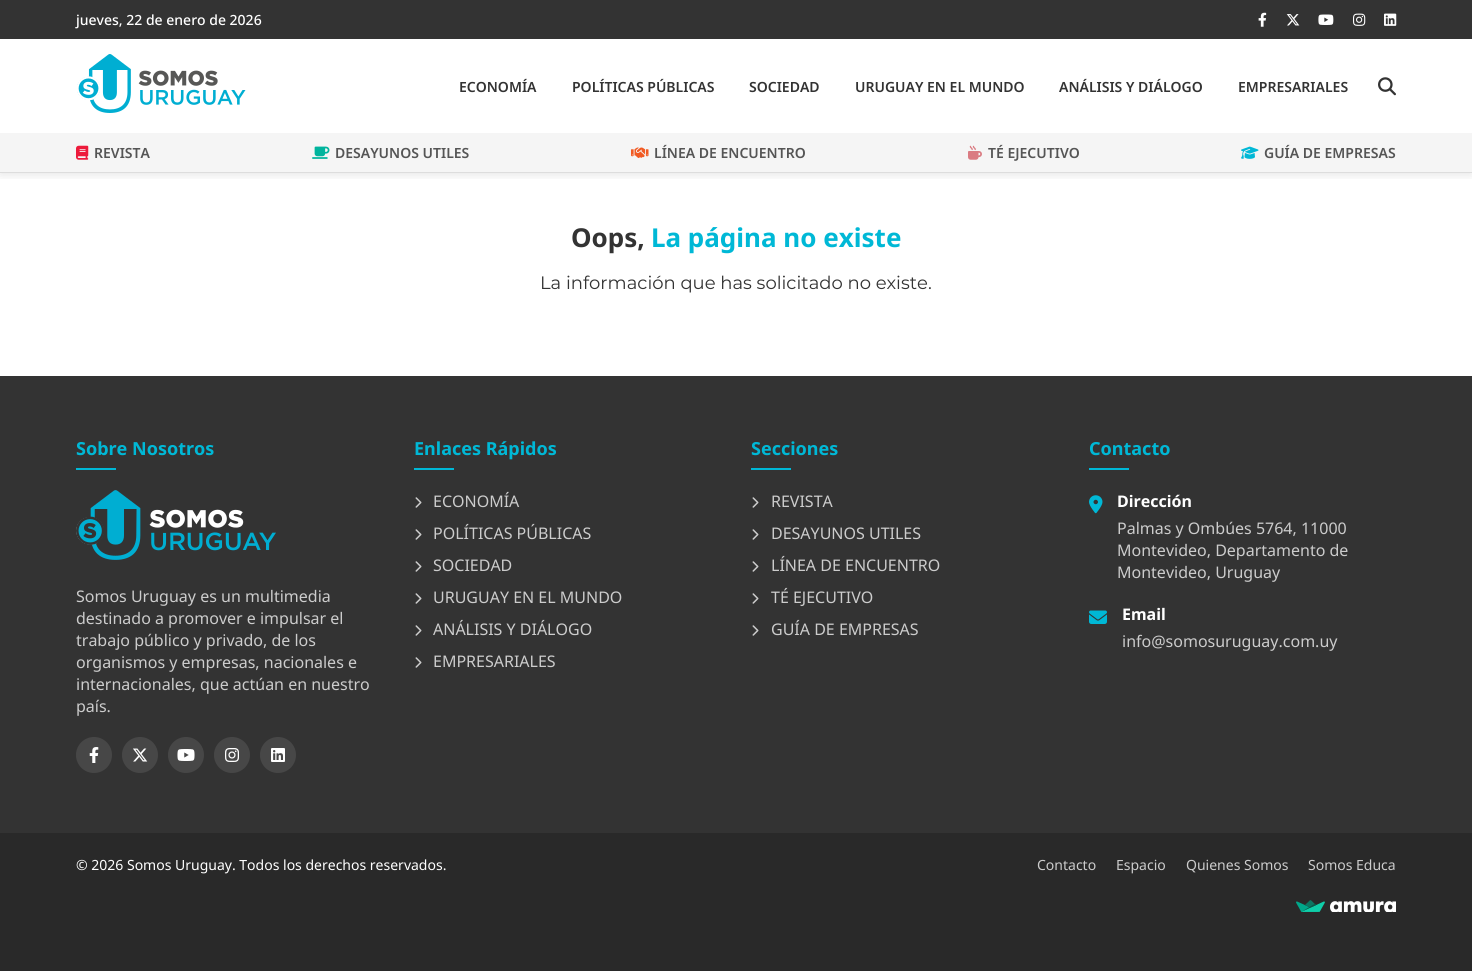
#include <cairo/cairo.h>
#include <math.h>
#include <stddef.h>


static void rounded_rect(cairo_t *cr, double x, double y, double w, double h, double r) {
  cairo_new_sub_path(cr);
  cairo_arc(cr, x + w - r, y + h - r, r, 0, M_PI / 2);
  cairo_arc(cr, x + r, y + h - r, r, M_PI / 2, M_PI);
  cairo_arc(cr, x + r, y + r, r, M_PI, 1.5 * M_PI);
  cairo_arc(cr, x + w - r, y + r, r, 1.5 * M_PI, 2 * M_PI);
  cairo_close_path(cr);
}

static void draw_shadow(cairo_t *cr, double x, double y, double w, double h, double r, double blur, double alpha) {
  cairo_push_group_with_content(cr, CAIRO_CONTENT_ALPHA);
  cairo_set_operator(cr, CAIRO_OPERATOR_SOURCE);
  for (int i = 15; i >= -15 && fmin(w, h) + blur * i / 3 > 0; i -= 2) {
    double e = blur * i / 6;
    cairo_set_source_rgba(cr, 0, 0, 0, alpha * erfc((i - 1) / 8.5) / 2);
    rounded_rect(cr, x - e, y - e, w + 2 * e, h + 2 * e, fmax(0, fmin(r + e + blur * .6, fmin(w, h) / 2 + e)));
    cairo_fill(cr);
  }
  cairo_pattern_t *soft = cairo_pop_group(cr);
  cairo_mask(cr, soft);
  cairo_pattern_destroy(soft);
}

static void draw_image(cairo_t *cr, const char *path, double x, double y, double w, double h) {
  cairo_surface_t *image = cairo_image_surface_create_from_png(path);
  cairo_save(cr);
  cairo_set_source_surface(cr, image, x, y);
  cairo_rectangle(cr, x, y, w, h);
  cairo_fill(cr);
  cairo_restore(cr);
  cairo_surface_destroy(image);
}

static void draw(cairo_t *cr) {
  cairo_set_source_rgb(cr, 1, 1, 1);
  cairo_paint(cr);
  cairo_save(cr);
  cairo_rectangle(cr, 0, 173, 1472, 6);
  cairo_clip(cr);
  cairo_set_source_rgb(cr, 0, 0, 0);
  draw_shadow(cr, 0, 2, 1472, 173, 0, 5, 0.1);
  cairo_restore(cr);
  cairo_set_source_rgb(cr, 51 / 255.0, 51 / 255.0, 51 / 255.0);
  cairo_rectangle(cr, 0, 0, 1472, 39);
  cairo_fill(cr);
  draw_image(cr, "images/1.png", 1258, 12, 9, 15);
  draw_image(cr, "images/2.png", 1286, 14, 14, 12);
  draw_image(cr, "images/3.png", 1318, 14, 16, 11);
  draw_image(cr, "images/4.png", 1353, 13, 13, 13);
  draw_image(cr, "images/5.png", 1384, 13, 13, 13);
  draw_image(cr, "images/6.png", 77, 54, 169, 59);
  draw_image(cr, "images/7.png", 1378, 77, 18, 19);
  cairo_set_source_rgb(cr, 245 / 255.0, 245 / 255.0, 245 / 255.0);
  cairo_rectangle(cr, 0, 133, 1472, 39);
  cairo_fill(cr);
  cairo_set_source_rgb(cr, 221 / 255.0, 221 / 255.0, 221 / 255.0);
  cairo_rectangle(cr, 0, 172, 1472, 1);
  cairo_fill(cr);
  draw_image(cr, "images/8.png", 76, 145, 13, 15);
  draw_image(cr, "images/9.png", 312, 146, 18, 13);
  draw_image(cr, "images/10.png", 631, 147, 18, 11);
  draw_image(cr, "images/11.png", 968, 145, 14, 15);
  draw_image(cr, "images/12.png", 1241, 146, 18, 13);
  cairo_set_source_rgb(cr, 51 / 255.0, 51 / 255.0, 51 / 255.0);
  cairo_rectangle(cr, 0, 376, 1472, 457);
  cairo_fill(cr);
  cairo_set_source_rgb(cr, 0, 184 / 255.0, 214 / 255.0);
  cairo_rectangle(cr, 76, 468, 40, 2);
  cairo_fill(cr);
  draw_image(cr, "images/13.png", 76, 490, 200, 70);
  cairo_set_source_rgb(cr, 71 / 255.0, 71 / 255.0, 71 / 255.0);
  cairo_arc(cr, 94, 755, 18, 0, 2 * M_PI);
  cairo_fill(cr);
  draw_image(cr, "images/14.png", 89, 747, 10, 16);
  cairo_arc(cr, 140, 755, 18, 0, 2 * M_PI);
  cairo_fill(cr);
  draw_image(cr, "images/15.png", 133, 748, 15, 14);
  cairo_arc(cr, 186, 755, 18, 0, 2 * M_PI);
  cairo_fill(cr);
  draw_image(cr, "images/16.png", 177, 749, 18, 12);
  cairo_arc(cr, 232, 755, 18, 0, 2 * M_PI);
  cairo_fill(cr);
  draw_image(cr, "images/17.png", 225, 748, 14, 14);
  cairo_arc(cr, 278, 755, 18, 0, 2 * M_PI);
  cairo_fill(cr);
  draw_image(cr, "images/18.png", 271, 748, 14, 14);
  cairo_set_source_rgb(cr, 0, 184 / 255.0, 214 / 255.0);
  cairo_rectangle(cr, 414, 468, 40, 2);
  cairo_fill(cr);
  draw_image(cr, "images/19.png", 415, 497, 7, 11);
  draw_image(cr, "images/19.png", 415, 529, 7, 11);
  draw_image(cr, "images/19.png", 415, 561, 7, 11);
  draw_image(cr, "images/19.png", 415, 593, 7, 11);
  draw_image(cr, "images/19.png", 415, 625, 7, 11);
  draw_image(cr, "images/19.png", 415, 657, 7, 11);
  cairo_rectangle(cr, 751, 468, 40, 2);
  cairo_fill(cr);
  draw_image(cr, "images/19.png", 752, 497, 7, 11);
  draw_image(cr, "images/19.png", 752, 529, 7, 11);
  draw_image(cr, "images/19.png", 752, 561, 7, 11);
  draw_image(cr, "images/19.png", 752, 593, 7, 11);
  draw_image(cr, "images/19.png", 752, 625, 7, 11);
  cairo_rectangle(cr, 1089, 468, 40, 2);
  cairo_fill(cr);
  draw_image(cr, "images/20.png", 1089, 495, 14, 19);
  draw_image(cr, "images/21.png", 1089, 610, 18, 14);
  cairo_set_source_rgb(cr, 41 / 255.0, 41 / 255.0, 41 / 255.0);
  cairo_rectangle(cr, 0, 833, 1472, 138);
  cairo_fill(cr);
  draw_image(cr, "images/22.png", 1296, 900, 100, 12);
  cairo_select_font_face(cr, "Noto Sans Medium", CAIRO_FONT_SLANT_NORMAL, CAIRO_FONT_WEIGHT_NORMAL);
  cairo_set_font_size(cr, 14);
  cairo_set_source_rgb(cr, 1, 1, 1);
  cairo_move_to(cr, 76, 25);
  cairo_show_text(cr, "jueves, 22 de enero de 2026");
  cairo_select_font_face(cr, "Noto Sans SemiBold", CAIRO_FONT_SLANT_NORMAL, CAIRO_FONT_WEIGHT_NORMAL);
  cairo_set_source_rgb(cr, 51 / 255.0, 51 / 255.0, 51 / 255.0);
  cairo_move_to(cr, 459, 92);
  cairo_show_text(cr, "ECONOMÍA");
  cairo_move_to(cr, 572, 92);
  cairo_show_text(cr, "POLÍTICAS PÚBLICAS");
  cairo_move_to(cr, 749, 92);
  cairo_show_text(cr, "SOCIEDAD");
  cairo_move_to(cr, 855, 92);
  cairo_show_text(cr, "URUGUAY EN EL MUNDO");
  cairo_move_to(cr, 1059, 92);
  cairo_show_text(cr, "ANÁLISIS Y DIÁLOGO");
  cairo_move_to(cr, 1238, 92);
  cairo_show_text(cr, "EMPRESARIALES");
  cairo_set_source_rgb(cr, 85 / 255.0, 85 / 255.0, 85 / 255.0);
  cairo_move_to(cr, 94, 158);
  cairo_show_text(cr, "REVISTA");
  cairo_move_to(cr, 335, 158);
  cairo_show_text(cr, "DESAYUNOS UTILES");
  cairo_move_to(cr, 654, 158);
  cairo_show_text(cr, "LÍNEA DE ENCUENTRO");
  cairo_move_to(cr, 988, 158);
  cairo_show_text(cr, "TÉ EJECUTIVO");
  cairo_move_to(cr, 1264, 158);
  cairo_show_text(cr, "GUÍA DE EMPRESAS");
  cairo_select_font_face(cr, "Noto Sans", CAIRO_FONT_SLANT_NORMAL, CAIRO_FONT_WEIGHT_BOLD);
  cairo_set_font_size(cr, 26);
  cairo_set_source_rgb(cr, 51 / 255.0, 51 / 255.0, 51 / 255.0);
  cairo_move_to(cr, 571, 247);
  cairo_show_text(cr, "Oops,");
  cairo_set_source_rgb(cr, 0, 184 / 255.0, 214 / 255.0);
  cairo_move_to(cr, 651, 247);
  cairo_show_text(cr, "La página no existe");
  cairo_select_font_face(cr, "Montserrat", CAIRO_FONT_SLANT_NORMAL, CAIRO_FONT_WEIGHT_NORMAL);
  cairo_set_font_size(cr, 18);
  cairo_set_source_rgb(cr, 51 / 255.0, 51 / 255.0, 51 / 255.0);
  cairo_move_to(cr, 540, 289);
  cairo_show_text(cr, "La información que has solicitado no existe.");
  cairo_select_font_face(cr, "Noto Sans", CAIRO_FONT_SLANT_NORMAL, CAIRO_FONT_WEIGHT_BOLD);
  cairo_set_source_rgb(cr, 0, 184 / 255.0, 214 / 255.0);
  cairo_move_to(cr, 76, 455);
  cairo_show_text(cr, "Sobre Nosotros");
  cairo_select_font_face(cr, "Noto Sans", CAIRO_FONT_SLANT_NORMAL, CAIRO_FONT_WEIGHT_NORMAL);
  cairo_set_font_size(cr, 16);
  cairo_set_source_rgb(cr, 204 / 255.0, 204 / 255.0, 204 / 255.0);
  cairo_move_to(cr, 76, 602);
  cairo_show_text(cr, "Somos Uruguay es un multimedia");
  cairo_move_to(cr, 76, 624);
  cairo_show_text(cr, "destinado a promover e impulsar el");
  cairo_move_to(cr, 76, 646);
  cairo_show_text(cr, "trabajo público y privado, de los");
  cairo_move_to(cr, 76, 668);
  cairo_show_text(cr, "organismos y empresas, nacionales e");
  cairo_move_to(cr, 76, 690);
  cairo_show_text(cr, "internacionales, que actúan en nuestro");
  cairo_move_to(cr, 76, 712);
  cairo_show_text(cr, "país.");
  cairo_select_font_face(cr, "Noto Sans", CAIRO_FONT_SLANT_NORMAL, CAIRO_FONT_WEIGHT_BOLD);
  cairo_set_font_size(cr, 18);
  cairo_set_source_rgb(cr, 0, 184 / 255.0, 214 / 255.0);
  cairo_move_to(cr, 414, 455);
  cairo_show_text(cr, "Enlaces Rápidos");
  cairo_select_font_face(cr, "Noto Sans", CAIRO_FONT_SLANT_NORMAL, CAIRO_FONT_WEIGHT_NORMAL);
  cairo_set_font_size(cr, 16);
  cairo_set_source_rgb(cr, 204 / 255.0, 204 / 255.0, 204 / 255.0);
  cairo_move_to(cr, 433, 507);
  cairo_show_text(cr, "ECONOMÍA");
  cairo_move_to(cr, 433, 539);
  cairo_show_text(cr, "POLÍTICAS PÚBLICAS");
  cairo_move_to(cr, 433, 571);
  cairo_show_text(cr, "SOCIEDAD");
  cairo_move_to(cr, 433, 603);
  cairo_show_text(cr, "URUGUAY EN EL MUNDO");
  cairo_move_to(cr, 433, 635);
  cairo_show_text(cr, "ANÁLISIS Y DIÁLOGO");
  cairo_move_to(cr, 433, 667);
  cairo_show_text(cr, "EMPRESARIALES");
  cairo_select_font_face(cr, "Noto Sans", CAIRO_FONT_SLANT_NORMAL, CAIRO_FONT_WEIGHT_BOLD);
  cairo_set_font_size(cr, 18);
  cairo_set_source_rgb(cr, 0, 184 / 255.0, 214 / 255.0);
  cairo_move_to(cr, 751, 455);
  cairo_show_text(cr, "Secciones");
  cairo_select_font_face(cr, "Noto Sans", CAIRO_FONT_SLANT_NORMAL, CAIRO_FONT_WEIGHT_NORMAL);
  cairo_set_font_size(cr, 16);
  cairo_set_source_rgb(cr, 204 / 255.0, 204 / 255.0, 204 / 255.0);
  cairo_move_to(cr, 771, 507);
  cairo_show_text(cr, "REVISTA");
  cairo_move_to(cr, 771, 539);
  cairo_show_text(cr, "DESAYUNOS UTILES");
  cairo_move_to(cr, 771, 571);
  cairo_show_text(cr, "LÍNEA DE ENCUENTRO");
  cairo_move_to(cr, 771, 603);
  cairo_show_text(cr, "TÉ EJECUTIVO");
  cairo_move_to(cr, 771, 635);
  cairo_show_text(cr, "GUÍA DE EMPRESAS");
  cairo_select_font_face(cr, "Noto Sans", CAIRO_FONT_SLANT_NORMAL, CAIRO_FONT_WEIGHT_BOLD);
  cairo_set_font_size(cr, 18);
  cairo_set_source_rgb(cr, 0, 184 / 255.0, 214 / 255.0);
  cairo_move_to(cr, 1089, 455);
  cairo_show_text(cr, "Contacto");
  cairo_set_font_size(cr, 16);
  cairo_set_source_rgb(cr, 1, 1, 1);
  cairo_move_to(cr, 1117, 507);
  cairo_show_text(cr, "Dirección");
  cairo_select_font_face(cr, "Noto Sans", CAIRO_FONT_SLANT_NORMAL, CAIRO_FONT_WEIGHT_NORMAL);
  cairo_set_source_rgb(cr, 204 / 255.0, 204 / 255.0, 204 / 255.0);
  cairo_move_to(cr, 1117, 534);
  cairo_show_text(cr, "Palmas y Ombúes 5764, 11000");
  cairo_move_to(cr, 1117, 556);
  cairo_show_text(cr, "Montevideo, Departamento de");
  cairo_move_to(cr, 1117, 578);
  cairo_show_text(cr, "Montevideo, Uruguay");
  cairo_select_font_face(cr, "Noto Sans", CAIRO_FONT_SLANT_NORMAL, CAIRO_FONT_WEIGHT_BOLD);
  cairo_set_source_rgb(cr, 1, 1, 1);
  cairo_move_to(cr, 1122, 620);
  cairo_show_text(cr, "Email");
  cairo_select_font_face(cr, "Noto Sans", CAIRO_FONT_SLANT_NORMAL, CAIRO_FONT_WEIGHT_NORMAL);
  cairo_set_source_rgb(cr, 204 / 255.0, 204 / 255.0, 204 / 255.0);
  cairo_move_to(cr, 1122, 647);
  cairo_show_text(cr, "info@somosuruguay.com.uy");
  cairo_set_font_size(cr, 14);
  cairo_set_source_rgb(cr, 1, 1, 1);
  cairo_move_to(cr, 76, 870);
  cairo_show_text(cr, "© 2026 Somos Uruguay. Todos los derechos reservados.");
  cairo_set_source_rgb(cr, 204 / 255.0, 204 / 255.0, 204 / 255.0);
  cairo_move_to(cr, 1037, 870);
  cairo_show_text(cr, "Contacto");
  cairo_move_to(cr, 1116, 870);
  cairo_show_text(cr, "Espacio");
  cairo_move_to(cr, 1186, 870);
  cairo_show_text(cr, "Quienes Somos");
  cairo_move_to(cr, 1308, 870);
  cairo_show_text(cr, "Somos Educa");
}

int main(void) {
  cairo_surface_t *surface = cairo_image_surface_create(CAIRO_FORMAT_RGB24, 1472, 971);
  cairo_t *cr = cairo_create(surface);
  cairo_font_options_t *options = cairo_font_options_create();
  cairo_font_options_set_hint_metrics(options, CAIRO_HINT_METRICS_OFF);
  cairo_font_options_set_hint_style(options, CAIRO_HINT_STYLE_NONE);
  cairo_set_font_options(cr, options);
  cairo_set_miter_limit(cr, 4);
  draw(cr);
  cairo_surface_write_to_png(surface, "out.png");
  cairo_font_options_destroy(options);
  cairo_destroy(cr);
  cairo_surface_destroy(surface);
  return 0;
}
